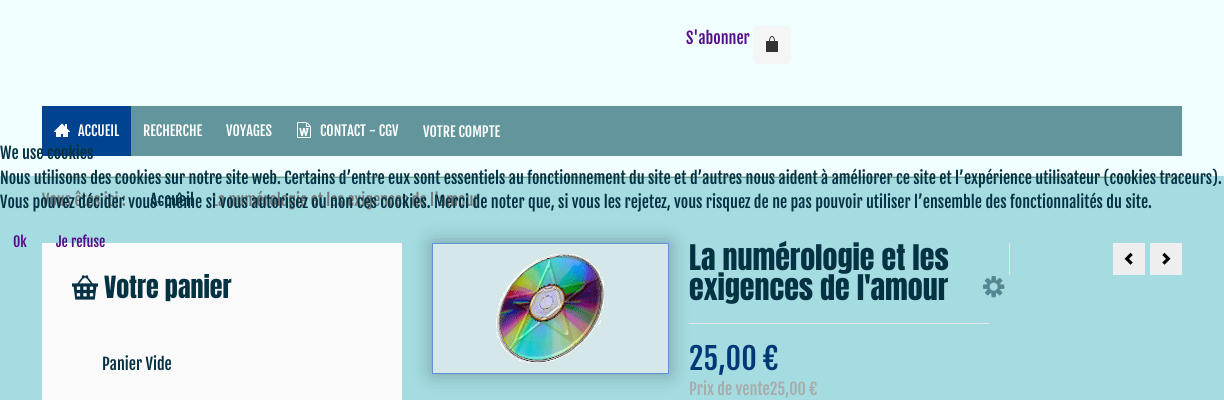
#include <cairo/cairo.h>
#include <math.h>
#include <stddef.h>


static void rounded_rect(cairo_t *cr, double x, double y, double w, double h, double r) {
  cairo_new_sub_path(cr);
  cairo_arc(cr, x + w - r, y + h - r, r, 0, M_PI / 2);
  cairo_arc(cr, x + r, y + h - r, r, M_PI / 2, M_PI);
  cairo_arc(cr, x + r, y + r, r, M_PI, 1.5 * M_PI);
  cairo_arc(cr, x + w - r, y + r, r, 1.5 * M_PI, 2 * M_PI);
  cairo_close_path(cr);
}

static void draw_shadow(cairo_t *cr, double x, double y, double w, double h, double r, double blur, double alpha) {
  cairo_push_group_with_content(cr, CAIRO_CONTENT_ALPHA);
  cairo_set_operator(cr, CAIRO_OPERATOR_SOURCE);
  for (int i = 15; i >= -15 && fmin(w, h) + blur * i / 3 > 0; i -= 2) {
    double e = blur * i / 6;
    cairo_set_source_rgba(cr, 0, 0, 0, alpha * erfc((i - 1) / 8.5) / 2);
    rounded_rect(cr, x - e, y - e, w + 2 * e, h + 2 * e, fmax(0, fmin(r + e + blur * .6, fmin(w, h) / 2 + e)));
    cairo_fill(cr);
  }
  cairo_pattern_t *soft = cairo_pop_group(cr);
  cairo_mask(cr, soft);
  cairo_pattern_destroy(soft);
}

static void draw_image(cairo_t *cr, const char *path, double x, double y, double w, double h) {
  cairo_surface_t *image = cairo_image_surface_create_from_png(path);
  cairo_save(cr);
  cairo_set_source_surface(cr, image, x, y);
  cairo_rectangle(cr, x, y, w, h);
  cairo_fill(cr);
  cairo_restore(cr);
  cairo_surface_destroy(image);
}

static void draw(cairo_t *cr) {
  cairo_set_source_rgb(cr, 241 / 255.0, 254 / 255.0, 1);
  cairo_paint(cr);
  cairo_set_source_rgb(cr, 245 / 255.0, 245 / 255.0, 245 / 255.0);
  rounded_rect(cr, 753, 26, 38, 38, 5);
  cairo_fill(cr);
  draw_image(cr, "images/1.png", 766, 36, 12, 16);
  cairo_set_source_rgb(cr, 98 / 255.0, 150 / 255.0, 156 / 255.0);
  cairo_rectangle(cr, 131, 106, 1051, 50);
  cairo_fill(cr);
  cairo_set_source_rgb(cr, 0, 68 / 255.0, 145 / 255.0);
  cairo_rectangle(cr, 42, 106, 89, 50);
  cairo_fill(cr);
  draw_image(cr, "images/2.png", 54, 123, 16, 14);
  draw_image(cr, "images/3.png", 297, 122, 14, 16);
  cairo_set_source_rgb(cr, 164 / 255.0, 220 / 255.0, 226 / 255.0);
  cairo_rectangle(cr, 0, 176, 1224, 224);
  cairo_fill(cr);
  cairo_set_source_rgb(cr, 137 / 255.0, 149 / 255.0, 123 / 255.0);
  cairo_new_path(cr);
  cairo_move_to(cr, 41, 177);
  cairo_line_to(cr, 1183, 177);
  cairo_line_to(cr, 1182, 178);
  cairo_line_to(cr, 42, 178);
  cairo_close_path(cr);
  cairo_fill(cr);
  cairo_set_source_rgb(cr, 0, 0, 0);
  draw_shadow(cr, 432, 243, 237, 131, 0, 10, 0.3);
  cairo_set_source_rgb(cr, 250 / 255.0, 250 / 255.0, 250 / 255.0);
  cairo_rectangle(cr, 42, 243, 360, 157);
  cairo_fill(cr);
  draw_image(cr, "images/4.png", 72, 275, 26, 25);
  cairo_set_source_rgb(cr, 213 / 255.0, 231 / 255.0, 233 / 255.0);
  cairo_rectangle(cr, 432.5, 243.5, 236, 130);
  cairo_fill_preserve(cr);
  cairo_set_source_rgb(cr, 97 / 255.0, 145 / 255.0, 214 / 255.0);
  cairo_set_line_width(cr, 1);
  cairo_stroke(cr);
  draw_image(cr, "images/5.png", 496, 254, 108, 109);
  draw_image(cr, "images/6.png", 983, 276, 22, 22);
  cairo_set_source_rgb(cr, 230 / 255.0, 230 / 255.0, 230 / 255.0);
  cairo_rectangle(cr, 689, 323, 300, 1);
  cairo_fill(cr);
  cairo_rectangle(cr, 1009, 243, 1, 32);
  cairo_fill(cr);
  cairo_set_source_rgb(cr, 238 / 255.0, 238 / 255.0, 238 / 255.0);
  cairo_rectangle(cr, 1113, 243, 32, 32);
  cairo_fill(cr);
  draw_image(cr, "images/7.png", 1124, 252, 9, 13);
  cairo_rectangle(cr, 1150, 243, 32, 32);
  cairo_fill(cr);
  draw_image(cr, "images/8.png", 1162, 252, 9, 13);
  cairo_select_font_face(cr, "Fjalla One", CAIRO_FONT_SLANT_NORMAL, CAIRO_FONT_WEIGHT_NORMAL);
  cairo_set_font_size(cr, 16);
  cairo_set_source_rgb(cr, 84 / 255.0, 12 / 255.0, 138 / 255.0);
  cairo_move_to(cr, 686, 44);
  cairo_show_text(cr, "S'abonner");
  cairo_set_font_size(cr, 14);
  cairo_set_source_rgb(cr, 1, 1, 1);
  cairo_move_to(cr, 78, 136);
  cairo_show_text(cr, "ACCUEIL");
  cairo_move_to(cr, 143, 136);
  cairo_show_text(cr, "RECHERCHE");
  cairo_move_to(cr, 226, 136);
  cairo_show_text(cr, "VOYAGES");
  cairo_move_to(cr, 320, 136);
  cairo_show_text(cr, "CONTACT - CGV");
  cairo_move_to(cr, 423, 137);
  cairo_show_text(cr, "VOTRE COMPTE");
  cairo_set_font_size(cr, 16);
  cairo_set_source_rgb(cr, 119 / 255.0, 119 / 255.0, 119 / 255.0);
  cairo_move_to(cr, 42, 206);
  cairo_show_text(cr, "Vous êtes ici :");
  cairo_set_source_rgb(cr, 4 / 255.0, 50 / 255.0, 66 / 255.0);
  cairo_move_to(cr, 150, 206);
  cairo_show_text(cr, "Accueil");
  cairo_set_source_rgb(cr, 119 / 255.0, 119 / 255.0, 119 / 255.0);
  cairo_move_to(cr, 212, 206);
  cairo_show_text(cr, "La numérologie et les exigences de l'amour");
  cairo_select_font_face(cr, "Anton", CAIRO_FONT_SLANT_NORMAL, CAIRO_FONT_WEIGHT_NORMAL);
  cairo_set_font_size(cr, 26);
  cairo_set_source_rgb(cr, 4 / 255.0, 50 / 255.0, 66 / 255.0);
  cairo_move_to(cr, 104, 298);
  cairo_show_text(cr, "Votre panier");
  cairo_select_font_face(cr, "Fjalla One", CAIRO_FONT_SLANT_NORMAL, CAIRO_FONT_WEIGHT_NORMAL);
  cairo_set_font_size(cr, 16);
  cairo_move_to(cr, 102, 370);
  cairo_show_text(cr, "Panier Vide");
  cairo_select_font_face(cr, "Anton", CAIRO_FONT_SLANT_NORMAL, CAIRO_FONT_WEIGHT_NORMAL);
  cairo_set_font_size(cr, 30);
  cairo_move_to(cr, 689, 270);
  cairo_show_text(cr, "La numérologie et les");
  cairo_move_to(cr, 689, 300);
  cairo_show_text(cr, "exigences de l'amour");
  cairo_select_font_face(cr, "Fjalla One", CAIRO_FONT_SLANT_NORMAL, CAIRO_FONT_WEIGHT_NORMAL);
  cairo_set_source_rgb(cr, 0, 55 / 255.0, 117 / 255.0);
  cairo_move_to(cr, 689, 370);
  cairo_show_text(cr, "25,00 €");
  cairo_set_font_size(cr, 16);
  cairo_set_source_rgb(cr, 170 / 255.0, 170 / 255.0, 170 / 255.0);
  cairo_move_to(cr, 689, 395);
  cairo_show_text(cr, "Prix de vente25,00 €");
  cairo_set_source_rgb(cr, 4 / 255.0, 50 / 255.0, 66 / 255.0);
  cairo_move_to(cr, 0, 159);
  cairo_show_text(cr, "We use cookies");
  cairo_move_to(cr, 0, 184);
  cairo_show_text(cr, "Nous utilisons des cookies sur notre site web. Certains d’entre eux sont essentiels au fonctionnement du site et d’autres nous aident à améliorer ce site et l’expérience utilisateur (cookies traceurs).");
  cairo_move_to(cr, 0, 208);
  cairo_show_text(cr, "Vous pouvez décider vous-même si vous autorisez ou non ces cookies. Merci de noter que, si vous les rejetez, vous risquez de ne pas pouvoir utiliser l’ensemble des fonctionnalités du site.");
  cairo_set_font_size(cr, 14);
  cairo_set_source_rgb(cr, 84 / 255.0, 12 / 255.0, 138 / 255.0);
  cairo_move_to(cr, 13, 247);
  cairo_show_text(cr, "Ok");
  cairo_move_to(cr, 56, 247);
  cairo_show_text(cr, "Je refuse");
}

int main(void) {
  cairo_surface_t *surface = cairo_image_surface_create(CAIRO_FORMAT_RGB24, 1224, 400);
  cairo_t *cr = cairo_create(surface);
  cairo_font_options_t *options = cairo_font_options_create();
  cairo_font_options_set_hint_metrics(options, CAIRO_HINT_METRICS_OFF);
  cairo_font_options_set_hint_style(options, CAIRO_HINT_STYLE_NONE);
  cairo_set_font_options(cr, options);
  cairo_set_miter_limit(cr, 4);
  draw(cr);
  cairo_surface_write_to_png(surface, "out.png");
  cairo_font_options_destroy(options);
  cairo_destroy(cr);
  cairo_surface_destroy(surface);
  return 0;
}
